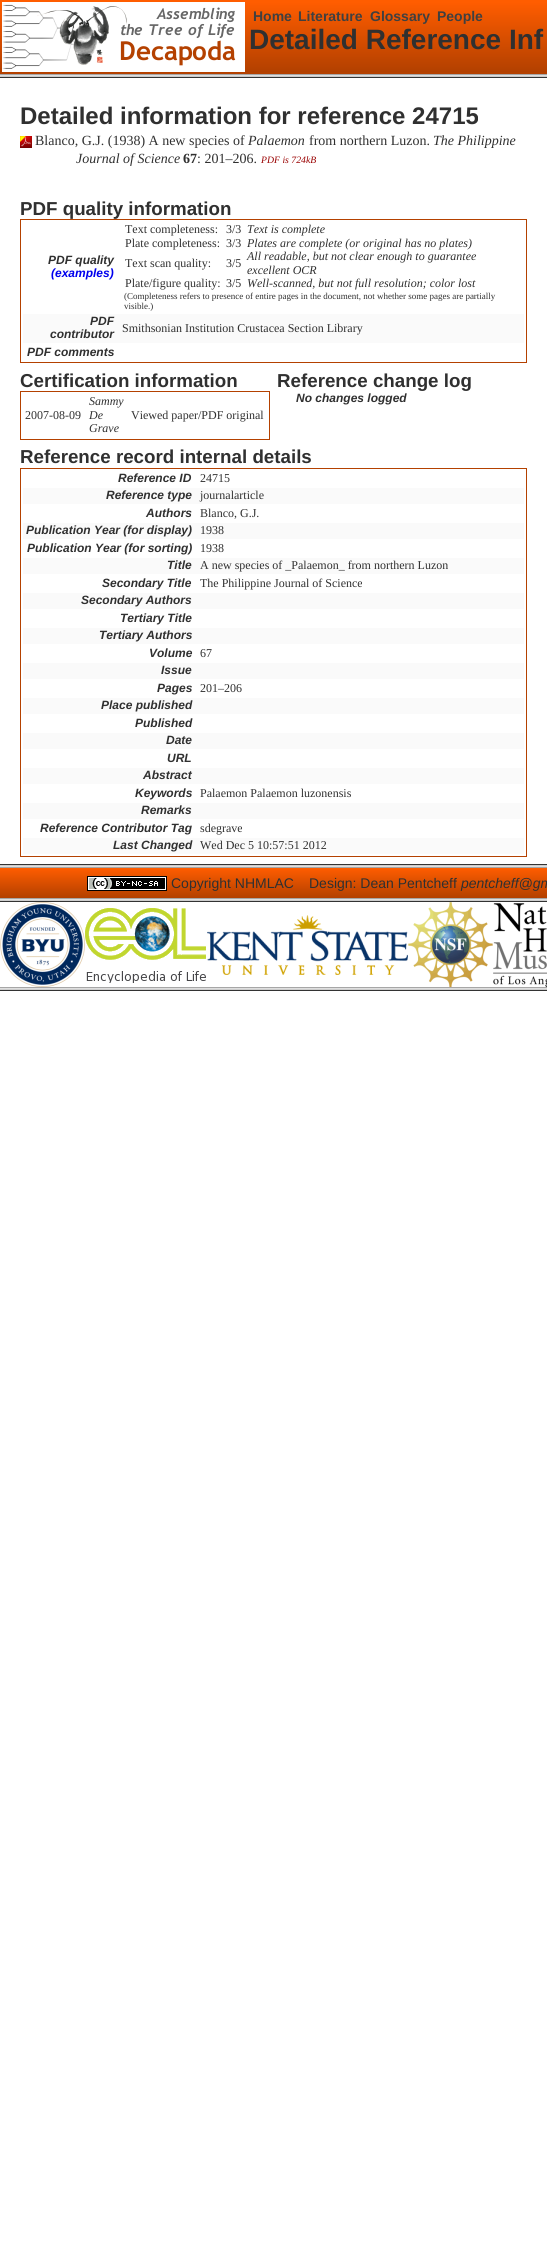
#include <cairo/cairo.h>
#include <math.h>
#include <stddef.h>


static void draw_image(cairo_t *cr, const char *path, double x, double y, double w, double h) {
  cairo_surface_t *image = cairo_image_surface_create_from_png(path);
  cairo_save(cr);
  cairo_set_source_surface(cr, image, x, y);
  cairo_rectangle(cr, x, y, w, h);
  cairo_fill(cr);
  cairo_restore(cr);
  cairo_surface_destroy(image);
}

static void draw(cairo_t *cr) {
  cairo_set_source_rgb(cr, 1, 1, 1);
  cairo_paint(cr);
  cairo_set_source_rgb(cr, 1, 93 / 255.0, 0);
  cairo_rectangle(cr, 0, 0, 547, 2);
  cairo_fill(cr);
  draw_image(cr, "images/1.png", 0, 2, 2, 70);
  draw_image(cr, "images/2.png", 2, 4, 234, 65);
  draw_image(cr, "images/3.png", 245, 2, 302, 70);
  cairo_set_source_rgb(cr, 180 / 255.0, 65 / 255.0, 0);
  cairo_rectangle(cr, 0, 72, 547, 2);
  cairo_fill(cr);
  draw_image(cr, "images/4.png", 0, 74, 547, 4);
  draw_image(cr, "images/5.png", 20, 136, 12, 12);
  cairo_rectangle(cr, 20.5, 219.5, 506, 143);
  cairo_set_line_width(cr, 1);
  cairo_stroke(cr);
  cairo_set_source_rgb(cr, 250 / 255.0, 250 / 255.0, 250 / 255.0);
  cairo_rectangle(cr, 23, 314, 501, 29);
  cairo_fill(cr);
  cairo_rectangle(cr, 20.5, 391.5, 249, 48);
  cairo_set_source_rgb(cr, 180 / 255.0, 65 / 255.0, 0);
  cairo_stroke(cr);
  cairo_rectangle(cr, 20.5, 468.5, 506, 388);
  cairo_stroke(cr);
  cairo_set_source_rgb(cr, 250 / 255.0, 250 / 255.0, 250 / 255.0);
  cairo_rectangle(cr, 23, 488, 501, 16);
  cairo_fill(cr);
  cairo_rectangle(cr, 23, 523, 501, 16);
  cairo_fill(cr);
  cairo_rectangle(cr, 23, 558, 501, 16);
  cairo_fill(cr);
  cairo_rectangle(cr, 23, 593, 501, 16);
  cairo_fill(cr);
  cairo_rectangle(cr, 23, 628, 501, 16);
  cairo_fill(cr);
  cairo_rectangle(cr, 23, 663, 501, 16);
  cairo_fill(cr);
  cairo_rectangle(cr, 23, 698, 501, 16);
  cairo_fill(cr);
  cairo_rectangle(cr, 23, 733, 501, 16);
  cairo_fill(cr);
  cairo_rectangle(cr, 23, 768, 501, 16);
  cairo_fill(cr);
  cairo_rectangle(cr, 23, 803, 501, 16);
  cairo_fill(cr);
  cairo_rectangle(cr, 23, 838, 501, 16);
  cairo_fill(cr);
  draw_image(cr, "images/6.png", 0, 864, 547, 4);
  draw_image(cr, "images/7.png", 0, 868, 547, 30);
  draw_image(cr, "images/8.png", 87, 876, 80, 15);
  draw_image(cr, "images/4.png", 0, 898, 547, 4);
  draw_image(cr, "images/9.png", 0, 902, 85, 85);
  draw_image(cr, "images/10.png", 85, 908, 121, 75);
  draw_image(cr, "images/11.png", 207, 915, 201, 60);
  draw_image(cr, "images/12.png", 408, 902, 85, 85);
  draw_image(cr, "images/13.png", 493, 903, 54, 84);
  draw_image(cr, "images/4.png", 0, 987, 547, 4);
  cairo_select_font_face(cr, "Liberation Sans", CAIRO_FONT_SLANT_NORMAL, CAIRO_FONT_WEIGHT_BOLD);
  cairo_set_font_size(cr, 14);
  cairo_set_source_rgb(cr, 64 / 255.0, 64 / 255.0, 64 / 255.0);
  cairo_move_to(cr, 253, 21);
  cairo_show_text(cr, "Home");
  cairo_move_to(cr, 298, 21);
  cairo_show_text(cr, "Literature");
  cairo_move_to(cr, 370, 21);
  cairo_show_text(cr, "Glossary");
  cairo_move_to(cr, 437, 21);
  cairo_show_text(cr, "People");
  cairo_set_font_size(cr, 28);
  cairo_set_source_rgb(cr, 48 / 255.0, 48 / 255.0, 48 / 255.0);
  cairo_move_to(cr, 249, 49);
  cairo_show_text(cr, "Detailed Reference Inf");
  cairo_set_font_size(cr, 24);
  cairo_move_to(cr, 20, 124);
  cairo_show_text(cr, "Detailed information for reference 24715");
  cairo_select_font_face(cr, "Liberation Serif", CAIRO_FONT_SLANT_NORMAL, CAIRO_FONT_WEIGHT_NORMAL);
  cairo_set_font_size(cr, 14);
  cairo_move_to(cr, 35, 145);
  cairo_show_text(cr, "Blanco, G.J. (1938) A new species of");
  cairo_select_font_face(cr, "Liberation Serif", CAIRO_FONT_SLANT_ITALIC, CAIRO_FONT_WEIGHT_NORMAL);
  cairo_move_to(cr, 248, 145);
  cairo_show_text(cr, "Palaemon");
  cairo_select_font_face(cr, "Liberation Serif", CAIRO_FONT_SLANT_NORMAL, CAIRO_FONT_WEIGHT_NORMAL);
  cairo_move_to(cr, 309, 145);
  cairo_show_text(cr, "from northern Luzon.");
  cairo_select_font_face(cr, "Liberation Serif", CAIRO_FONT_SLANT_ITALIC, CAIRO_FONT_WEIGHT_NORMAL);
  cairo_move_to(cr, 433, 145);
  cairo_show_text(cr, "The Philippine");
  cairo_move_to(cr, 76, 163);
  cairo_show_text(cr, "Journal of Science");
  cairo_select_font_face(cr, "Liberation Serif", CAIRO_FONT_SLANT_NORMAL, CAIRO_FONT_WEIGHT_BOLD);
  cairo_move_to(cr, 183, 163);
  cairo_show_text(cr, "67");
  cairo_select_font_face(cr, "Liberation Serif", CAIRO_FONT_SLANT_NORMAL, CAIRO_FONT_WEIGHT_NORMAL);
  cairo_move_to(cr, 197, 163);
  cairo_show_text(cr, ": 201–206.");
  cairo_select_font_face(cr, "Liberation Serif", CAIRO_FONT_SLANT_ITALIC, CAIRO_FONT_WEIGHT_NORMAL);
  cairo_set_font_size(cr, 9.75);
  cairo_set_source_rgb(cr, 153 / 255.0, 0, 0);
  cairo_move_to(cr, 261, 163);
  cairo_show_text(cr, "PDF is 724kB");
  cairo_select_font_face(cr, "Liberation Sans", CAIRO_FONT_SLANT_NORMAL, CAIRO_FONT_WEIGHT_BOLD);
  cairo_set_font_size(cr, 18.75);
  cairo_set_source_rgb(cr, 48 / 255.0, 48 / 255.0, 48 / 255.0);
  cairo_move_to(cr, 20, 215);
  cairo_show_text(cr, "PDF quality information");
  cairo_select_font_face(cr, "Liberation Sans", CAIRO_FONT_SLANT_ITALIC, CAIRO_FONT_WEIGHT_BOLD);
  cairo_set_font_size(cr, 12);
  cairo_move_to(cr, 48, 264);
  cairo_show_text(cr, "PDF quality");
  cairo_set_source_rgb(cr, 0, 0, 238 / 255.0);
  cairo_move_to(cr, 51, 277);
  cairo_show_text(cr, "(examples)");
  cairo_select_font_face(cr, "Liberation Serif", CAIRO_FONT_SLANT_NORMAL, CAIRO_FONT_WEIGHT_NORMAL);
  cairo_set_source_rgb(cr, 48 / 255.0, 48 / 255.0, 48 / 255.0);
  cairo_move_to(cr, 125, 233);
  cairo_show_text(cr, "Text completeness:");
  cairo_move_to(cr, 226, 233);
  cairo_show_text(cr, "3/3");
  cairo_select_font_face(cr, "Liberation Serif", CAIRO_FONT_SLANT_ITALIC, CAIRO_FONT_WEIGHT_NORMAL);
  cairo_move_to(cr, 247, 233);
  cairo_show_text(cr, "Text is complete");
  cairo_select_font_face(cr, "Liberation Serif", CAIRO_FONT_SLANT_NORMAL, CAIRO_FONT_WEIGHT_NORMAL);
  cairo_move_to(cr, 125, 247);
  cairo_show_text(cr, "Plate completeness:");
  cairo_move_to(cr, 226, 247);
  cairo_show_text(cr, "3/3");
  cairo_select_font_face(cr, "Liberation Serif", CAIRO_FONT_SLANT_ITALIC, CAIRO_FONT_WEIGHT_NORMAL);
  cairo_move_to(cr, 247, 247);
  cairo_show_text(cr, "Plates are complete (or original has no plates)");
  cairo_select_font_face(cr, "Liberation Serif", CAIRO_FONT_SLANT_NORMAL, CAIRO_FONT_WEIGHT_NORMAL);
  cairo_move_to(cr, 125, 267);
  cairo_show_text(cr, "Text scan quality:");
  cairo_move_to(cr, 226, 267);
  cairo_show_text(cr, "3/5");
  cairo_select_font_face(cr, "Liberation Serif", CAIRO_FONT_SLANT_ITALIC, CAIRO_FONT_WEIGHT_NORMAL);
  cairo_move_to(cr, 247, 260);
  cairo_show_text(cr, "All readable, but not clear enough to guarantee");
  cairo_move_to(cr, 247, 274);
  cairo_show_text(cr, "excellent OCR");
  cairo_select_font_face(cr, "Liberation Serif", CAIRO_FONT_SLANT_NORMAL, CAIRO_FONT_WEIGHT_NORMAL);
  cairo_move_to(cr, 125, 287);
  cairo_show_text(cr, "Plate/figure quality:");
  cairo_move_to(cr, 226, 287);
  cairo_show_text(cr, "3/5");
  cairo_select_font_face(cr, "Liberation Serif", CAIRO_FONT_SLANT_ITALIC, CAIRO_FONT_WEIGHT_NORMAL);
  cairo_move_to(cr, 247, 287);
  cairo_show_text(cr, "Well-scanned, but not full resolution; color lost");
  cairo_select_font_face(cr, "Liberation Serif", CAIRO_FONT_SLANT_NORMAL, CAIRO_FONT_WEIGHT_NORMAL);
  cairo_set_font_size(cr, 9);
  cairo_move_to(cr, 124, 299);
  cairo_show_text(cr, "(Completeness refers to presence of entire pages in the document, not whether some pages are partially");
  cairo_move_to(cr, 124, 309);
  cairo_show_text(cr, "visible.)");
  cairo_select_font_face(cr, "Liberation Sans", CAIRO_FONT_SLANT_ITALIC, CAIRO_FONT_WEIGHT_BOLD);
  cairo_set_font_size(cr, 12);
  cairo_move_to(cr, 90, 325);
  cairo_show_text(cr, "PDF");
  cairo_move_to(cr, 50, 338);
  cairo_show_text(cr, "contributor");
  cairo_select_font_face(cr, "Liberation Serif", CAIRO_FONT_SLANT_NORMAL, CAIRO_FONT_WEIGHT_NORMAL);
  cairo_move_to(cr, 122, 332);
  cairo_show_text(cr, "Smithsonian Institution Crustacea Section Library");
  cairo_select_font_face(cr, "Liberation Sans", CAIRO_FONT_SLANT_ITALIC, CAIRO_FONT_WEIGHT_BOLD);
  cairo_move_to(cr, 27, 356);
  cairo_show_text(cr, "PDF comments");
  cairo_select_font_face(cr, "Liberation Sans", CAIRO_FONT_SLANT_NORMAL, CAIRO_FONT_WEIGHT_BOLD);
  cairo_set_font_size(cr, 18.75);
  cairo_move_to(cr, 20, 387);
  cairo_show_text(cr, "Certification information");
  cairo_select_font_face(cr, "Liberation Serif", CAIRO_FONT_SLANT_NORMAL, CAIRO_FONT_WEIGHT_NORMAL);
  cairo_set_font_size(cr, 12);
  cairo_move_to(cr, 25, 419);
  cairo_show_text(cr, "2007-08-09");
  cairo_select_font_face(cr, "Liberation Serif", CAIRO_FONT_SLANT_ITALIC, CAIRO_FONT_WEIGHT_NORMAL);
  cairo_move_to(cr, 89, 405);
  cairo_show_text(cr, "Sammy");
  cairo_move_to(cr, 89, 419);
  cairo_show_text(cr, "De");
  cairo_move_to(cr, 89, 432);
  cairo_show_text(cr, "Grave");
  cairo_select_font_face(cr, "Liberation Serif", CAIRO_FONT_SLANT_NORMAL, CAIRO_FONT_WEIGHT_NORMAL);
  cairo_move_to(cr, 131, 419);
  cairo_show_text(cr, "Viewed paper/PDF original");
  cairo_select_font_face(cr, "Liberation Sans", CAIRO_FONT_SLANT_NORMAL, CAIRO_FONT_WEIGHT_BOLD);
  cairo_set_font_size(cr, 18.75);
  cairo_move_to(cr, 277, 387);
  cairo_show_text(cr, "Reference change log");
  cairo_select_font_face(cr, "Liberation Sans", CAIRO_FONT_SLANT_ITALIC, CAIRO_FONT_WEIGHT_BOLD);
  cairo_set_font_size(cr, 12);
  cairo_move_to(cr, 296, 402);
  cairo_show_text(cr, "No changes logged");
  cairo_select_font_face(cr, "Liberation Sans", CAIRO_FONT_SLANT_NORMAL, CAIRO_FONT_WEIGHT_BOLD);
  cairo_set_font_size(cr, 18.75);
  cairo_move_to(cr, 20, 463);
  cairo_show_text(cr, "Reference record internal details");
  cairo_select_font_face(cr, "Liberation Sans", CAIRO_FONT_SLANT_ITALIC, CAIRO_FONT_WEIGHT_BOLD);
  cairo_set_font_size(cr, 12);
  cairo_move_to(cr, 118, 482);
  cairo_show_text(cr, "Reference ID");
  cairo_select_font_face(cr, "Liberation Serif", CAIRO_FONT_SLANT_NORMAL, CAIRO_FONT_WEIGHT_NORMAL);
  cairo_move_to(cr, 200, 482);
  cairo_show_text(cr, "24715");
  cairo_select_font_face(cr, "Liberation Sans", CAIRO_FONT_SLANT_ITALIC, CAIRO_FONT_WEIGHT_BOLD);
  cairo_move_to(cr, 106, 499);
  cairo_show_text(cr, "Reference type");
  cairo_select_font_face(cr, "Liberation Serif", CAIRO_FONT_SLANT_NORMAL, CAIRO_FONT_WEIGHT_NORMAL);
  cairo_move_to(cr, 200, 499);
  cairo_show_text(cr, "journalarticle");
  cairo_select_font_face(cr, "Liberation Sans", CAIRO_FONT_SLANT_ITALIC, CAIRO_FONT_WEIGHT_BOLD);
  cairo_move_to(cr, 146, 517);
  cairo_show_text(cr, "Authors");
  cairo_select_font_face(cr, "Liberation Serif", CAIRO_FONT_SLANT_NORMAL, CAIRO_FONT_WEIGHT_NORMAL);
  cairo_move_to(cr, 200, 517);
  cairo_show_text(cr, "Blanco, G.J.");
  cairo_select_font_face(cr, "Liberation Sans", CAIRO_FONT_SLANT_ITALIC, CAIRO_FONT_WEIGHT_BOLD);
  cairo_move_to(cr, 26, 534);
  cairo_show_text(cr, "Publication Year (for display)");
  cairo_select_font_face(cr, "Liberation Serif", CAIRO_FONT_SLANT_NORMAL, CAIRO_FONT_WEIGHT_NORMAL);
  cairo_move_to(cr, 200, 534);
  cairo_show_text(cr, "1938");
  cairo_select_font_face(cr, "Liberation Sans", CAIRO_FONT_SLANT_ITALIC, CAIRO_FONT_WEIGHT_BOLD);
  cairo_move_to(cr, 27, 552);
  cairo_show_text(cr, "Publication Year (for sorting)");
  cairo_select_font_face(cr, "Liberation Serif", CAIRO_FONT_SLANT_NORMAL, CAIRO_FONT_WEIGHT_NORMAL);
  cairo_move_to(cr, 200, 552);
  cairo_show_text(cr, "1938");
  cairo_select_font_face(cr, "Liberation Sans", CAIRO_FONT_SLANT_ITALIC, CAIRO_FONT_WEIGHT_BOLD);
  cairo_move_to(cr, 167, 569);
  cairo_show_text(cr, "Title");
  cairo_select_font_face(cr, "Liberation Serif", CAIRO_FONT_SLANT_NORMAL, CAIRO_FONT_WEIGHT_NORMAL);
  cairo_move_to(cr, 200, 569);
  cairo_show_text(cr, "A new species of _Palaemon_ from northern Luzon");
  cairo_select_font_face(cr, "Liberation Sans", CAIRO_FONT_SLANT_ITALIC, CAIRO_FONT_WEIGHT_BOLD);
  cairo_move_to(cr, 102, 587);
  cairo_show_text(cr, "Secondary Title");
  cairo_select_font_face(cr, "Liberation Serif", CAIRO_FONT_SLANT_NORMAL, CAIRO_FONT_WEIGHT_NORMAL);
  cairo_move_to(cr, 200, 587);
  cairo_show_text(cr, "The Philippine Journal of Science");
  cairo_select_font_face(cr, "Liberation Sans", CAIRO_FONT_SLANT_ITALIC, CAIRO_FONT_WEIGHT_BOLD);
  cairo_move_to(cr, 81, 604);
  cairo_show_text(cr, "Secondary Authors");
  cairo_move_to(cr, 120, 622);
  cairo_show_text(cr, "Tertiary Title");
  cairo_move_to(cr, 99, 639);
  cairo_show_text(cr, "Tertiary Authors");
  cairo_move_to(cr, 149, 657);
  cairo_show_text(cr, "Volume");
  cairo_select_font_face(cr, "Liberation Serif", CAIRO_FONT_SLANT_NORMAL, CAIRO_FONT_WEIGHT_NORMAL);
  cairo_move_to(cr, 200, 657);
  cairo_show_text(cr, "67");
  cairo_select_font_face(cr, "Liberation Sans", CAIRO_FONT_SLANT_ITALIC, CAIRO_FONT_WEIGHT_BOLD);
  cairo_move_to(cr, 161, 674);
  cairo_show_text(cr, "Issue");
  cairo_move_to(cr, 157, 692);
  cairo_show_text(cr, "Pages");
  cairo_select_font_face(cr, "Liberation Serif", CAIRO_FONT_SLANT_NORMAL, CAIRO_FONT_WEIGHT_NORMAL);
  cairo_move_to(cr, 200, 692);
  cairo_show_text(cr, "201–206");
  cairo_select_font_face(cr, "Liberation Sans", CAIRO_FONT_SLANT_ITALIC, CAIRO_FONT_WEIGHT_BOLD);
  cairo_move_to(cr, 101, 709);
  cairo_show_text(cr, "Place published");
  cairo_move_to(cr, 135, 727);
  cairo_show_text(cr, "Published");
  cairo_move_to(cr, 166, 744);
  cairo_show_text(cr, "Date");
  cairo_move_to(cr, 167, 762);
  cairo_show_text(cr, "URL");
  cairo_move_to(cr, 143, 779);
  cairo_show_text(cr, "Abstract");
  cairo_move_to(cr, 135, 797);
  cairo_show_text(cr, "Keywords");
  cairo_select_font_face(cr, "Liberation Serif", CAIRO_FONT_SLANT_NORMAL, CAIRO_FONT_WEIGHT_NORMAL);
  cairo_move_to(cr, 200, 797);
  cairo_show_text(cr, "Palaemon Palaemon luzonensis");
  cairo_select_font_face(cr, "Liberation Sans", CAIRO_FONT_SLANT_ITALIC, CAIRO_FONT_WEIGHT_BOLD);
  cairo_move_to(cr, 141, 814);
  cairo_show_text(cr, "Remarks");
  cairo_move_to(cr, 40, 832);
  cairo_show_text(cr, "Reference Contributor Tag");
  cairo_select_font_face(cr, "Liberation Serif", CAIRO_FONT_SLANT_NORMAL, CAIRO_FONT_WEIGHT_NORMAL);
  cairo_move_to(cr, 200, 832);
  cairo_show_text(cr, "sdegrave");
  cairo_select_font_face(cr, "Liberation Sans", CAIRO_FONT_SLANT_ITALIC, CAIRO_FONT_WEIGHT_BOLD);
  cairo_move_to(cr, 113, 849);
  cairo_show_text(cr, "Last Changed");
  cairo_select_font_face(cr, "Liberation Serif", CAIRO_FONT_SLANT_NORMAL, CAIRO_FONT_WEIGHT_NORMAL);
  cairo_move_to(cr, 200, 849);
  cairo_show_text(cr, "Wed Dec 5 10:57:51 2012");
  cairo_select_font_face(cr, "Liberation Sans", CAIRO_FONT_SLANT_NORMAL, CAIRO_FONT_WEIGHT_NORMAL);
  cairo_set_font_size(cr, 14);
  cairo_move_to(cr, 171, 888);
  cairo_show_text(cr, "Copyright NHMLAC");
  cairo_move_to(cr, 309, 888);
  cairo_show_text(cr, "Design: Dean Pentcheff");
  cairo_select_font_face(cr, "Liberation Sans", CAIRO_FONT_SLANT_ITALIC, CAIRO_FONT_WEIGHT_NORMAL);
  cairo_move_to(cr, 461, 888);
  cairo_show_text(cr, "pentcheff@gm");
}

int main(void) {
  cairo_surface_t *surface = cairo_image_surface_create(CAIRO_FORMAT_RGB24, 547, 2244);
  cairo_t *cr = cairo_create(surface);
  cairo_font_options_t *options = cairo_font_options_create();
  cairo_font_options_set_hint_metrics(options, CAIRO_HINT_METRICS_OFF);
  cairo_font_options_set_hint_style(options, CAIRO_HINT_STYLE_NONE);
  cairo_set_font_options(cr, options);
  cairo_set_miter_limit(cr, 4);
  draw(cr);
  cairo_surface_write_to_png(surface, "out.png");
  cairo_font_options_destroy(options);
  cairo_destroy(cr);
  cairo_surface_destroy(surface);
  return 0;
}
